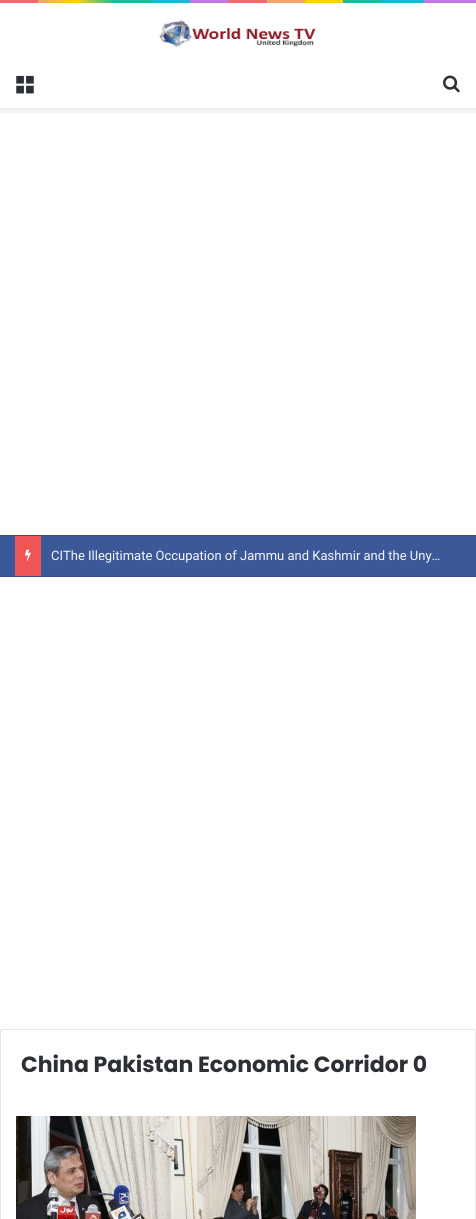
#include <cairo/cairo.h>
#include <math.h>
#include <stddef.h>


static void rounded_rect(cairo_t *cr, double x, double y, double w, double h, double r) {
  cairo_new_sub_path(cr);
  cairo_arc(cr, x + w - r, y + h - r, r, 0, M_PI / 2);
  cairo_arc(cr, x + r, y + h - r, r, M_PI / 2, M_PI);
  cairo_arc(cr, x + r, y + r, r, M_PI, 1.5 * M_PI);
  cairo_arc(cr, x + w - r, y + r, r, 1.5 * M_PI, 2 * M_PI);
  cairo_close_path(cr);
}

static void draw_shadow(cairo_t *cr, double x, double y, double w, double h, double r, double blur, double alpha) {
  cairo_push_group_with_content(cr, CAIRO_CONTENT_ALPHA);
  cairo_set_operator(cr, CAIRO_OPERATOR_SOURCE);
  for (int i = 15; i >= -15 && fmin(w, h) + blur * i / 3 > 0; i -= 2) {
    double e = blur * i / 6;
    cairo_set_source_rgba(cr, 0, 0, 0, alpha * erfc((i - 1) / 8.5) / 2);
    rounded_rect(cr, x - e, y - e, w + 2 * e, h + 2 * e, fmax(0, fmin(r + e + blur * .6, fmin(w, h) / 2 + e)));
    cairo_fill(cr);
  }
  cairo_pattern_t *soft = cairo_pop_group(cr);
  cairo_mask(cr, soft);
  cairo_pattern_destroy(soft);
}

static void draw_image(cairo_t *cr, const char *path, double x, double y, double w, double h) {
  cairo_surface_t *image = cairo_image_surface_create_from_png(path);
  cairo_save(cr);
  cairo_set_source_surface(cr, image, x, y);
  cairo_rectangle(cr, x, y, w, h);
  cairo_fill(cr);
  cairo_restore(cr);
  cairo_surface_destroy(image);
}

static void draw(cairo_t *cr) {
  cairo_pattern_t *gradient;
  cairo_set_source_rgb(cr, 1, 1, 1);
  cairo_paint(cr);
  gradient = cairo_pattern_create_linear(0, 1.5, 476, 1.5);
  cairo_pattern_add_color_stop_rgba(gradient, 0, 247 / 255.0, 101 / 255.0, 112 / 255.0, 1);
  cairo_pattern_add_color_stop_rgba(gradient, 0.08, 247 / 255.0, 101 / 255.0, 112 / 255.0, 1);
  cairo_pattern_add_color_stop_rgba(gradient, 0.08, 243 / 255.0, 164 / 255.0, 107 / 255.0, 1);
  cairo_pattern_add_color_stop_rgba(gradient, 0.16, 1, 210 / 255.0, 5 / 255.0, 1);
  cairo_pattern_add_color_stop_rgba(gradient, 0.24, 27 / 255.0, 188 / 255.0, 155 / 255.0, 1);
  cairo_pattern_add_color_stop_rgba(gradient, 0.32, 27 / 255.0, 188 / 255.0, 155 / 255.0, 1);
  cairo_pattern_add_color_stop_rgba(gradient, 0.32, 20 / 255.0, 185 / 255.0, 213 / 255.0, 1);
  cairo_pattern_add_color_stop_rgba(gradient, 0.4, 20 / 255.0, 185 / 255.0, 213 / 255.0, 1);
  cairo_pattern_add_color_stop_rgba(gradient, 0.4, 195 / 255.0, 119 / 255.0, 228 / 255.0, 1);
  cairo_pattern_add_color_stop_rgba(gradient, 0.48, 195 / 255.0, 119 / 255.0, 228 / 255.0, 1);
  cairo_pattern_add_color_stop_rgba(gradient, 0.48, 247 / 255.0, 101 / 255.0, 112 / 255.0, 1);
  cairo_pattern_add_color_stop_rgba(gradient, 0.56, 247 / 255.0, 101 / 255.0, 112 / 255.0, 1);
  cairo_pattern_add_color_stop_rgba(gradient, 0.56, 243 / 255.0, 164 / 255.0, 107 / 255.0, 1);
  cairo_pattern_add_color_stop_rgba(gradient, 0.64, 243 / 255.0, 164 / 255.0, 107 / 255.0, 1);
  cairo_pattern_add_color_stop_rgba(gradient, 0.64, 1, 210 / 255.0, 5 / 255.0, 1);
  cairo_pattern_add_color_stop_rgba(gradient, 0.72, 1, 210 / 255.0, 5 / 255.0, 1);
  cairo_pattern_add_color_stop_rgba(gradient, 0.72, 27 / 255.0, 188 / 255.0, 155 / 255.0, 1);
  cairo_pattern_add_color_stop_rgba(gradient, 0.8, 27 / 255.0, 188 / 255.0, 155 / 255.0, 1);
  cairo_pattern_add_color_stop_rgba(gradient, 0.8, 20 / 255.0, 185 / 255.0, 213 / 255.0, 1);
  cairo_pattern_add_color_stop_rgba(gradient, 0.89, 20 / 255.0, 185 / 255.0, 213 / 255.0, 1);
  cairo_pattern_add_color_stop_rgba(gradient, 0.89, 195 / 255.0, 119 / 255.0, 228 / 255.0, 1);
  cairo_pattern_add_color_stop_rgba(gradient, 1, 195 / 255.0, 119 / 255.0, 228 / 255.0, 1);
  cairo_set_source(cr, gradient);
  cairo_pattern_destroy(gradient);
  cairo_rectangle(cr, 0, 0, 476, 3);
  cairo_fill(cr);
  cairo_save(cr);
  cairo_rectangle(cr, 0, 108, 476, 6);
  cairo_clip(cr);
  cairo_set_source_rgb(cr, 0, 0, 0);
  draw_shadow(cr, 0, 6, 476, 105, 0, 3.5, 0.1);
  cairo_restore(cr);
  draw_image(cr, "images/1.png", 159, 20, 157, 27);
  draw_image(cr, "images/2.png", 16, 75, 18, 19);
  draw_image(cr, "images/3.png", 443, 75, 17, 18);
  cairo_set_source_rgb(cr, 59 / 255.0, 89 / 255.0, 152 / 255.0);
  cairo_rectangle(cr, 0, 536, 476, 40);
  cairo_fill(cr);
  cairo_set_source_rgb(cr, 53 / 255.0, 80 / 255.0, 137 / 255.0);
  cairo_rectangle(cr, 0, 535, 476, 1);
  cairo_fill(cr);
  cairo_rectangle(cr, 0, 576, 476, 1);
  cairo_fill(cr);
  cairo_set_source_rgb(cr, 240 / 255.0, 85 / 255.0, 85 / 255.0);
  cairo_rectangle(cr, 15, 536, 26, 40);
  cairo_fill(cr);
  draw_image(cr, "images/4.png", 25, 549, 6, 12);
  rounded_rect(cr, 0.5, 1029.5, 475, 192, 1.5);
  cairo_set_source_rgb(cr, 230 / 255.0, 230 / 255.0, 230 / 255.0);
  cairo_set_line_width(cr, 1);
  cairo_stroke(cr);
  draw_image(cr, "images/5.png", 16, 1116, 400, 103);
  cairo_select_font_face(cr, "Roboto", CAIRO_FONT_SLANT_NORMAL, CAIRO_FONT_WEIGHT_NORMAL);
  cairo_set_font_size(cr, 13);
  cairo_set_source_rgb(cr, 246 / 255.0, 247 / 255.0, 249 / 255.0);
  cairo_move_to(cr, 51, 560);
  cairo_show_text(cr, "CIThe Illegitimate Occupation of Jammu and Kashmir and the Uny…");
  cairo_select_font_face(cr, "Poppins", CAIRO_FONT_SLANT_NORMAL, CAIRO_FONT_WEIGHT_BOLD);
  cairo_set_font_size(cr, 22);
  cairo_set_source_rgb(cr, 44 / 255.0, 47 / 255.0, 52 / 255.0);
  cairo_move_to(cr, 21, 1072);
  cairo_show_text(cr, "China Pakistan Economic Corridor 0");
}

int main(void) {
  cairo_surface_t *surface = cairo_image_surface_create(CAIRO_FORMAT_RGB24, 476, 1219);
  cairo_t *cr = cairo_create(surface);
  cairo_font_options_t *options = cairo_font_options_create();
  cairo_font_options_set_hint_metrics(options, CAIRO_HINT_METRICS_OFF);
  cairo_font_options_set_hint_style(options, CAIRO_HINT_STYLE_NONE);
  cairo_set_font_options(cr, options);
  cairo_set_miter_limit(cr, 4);
  draw(cr);
  cairo_surface_write_to_png(surface, "out.png");
  cairo_font_options_destroy(options);
  cairo_destroy(cr);
  cairo_surface_destroy(surface);
  return 0;
}
